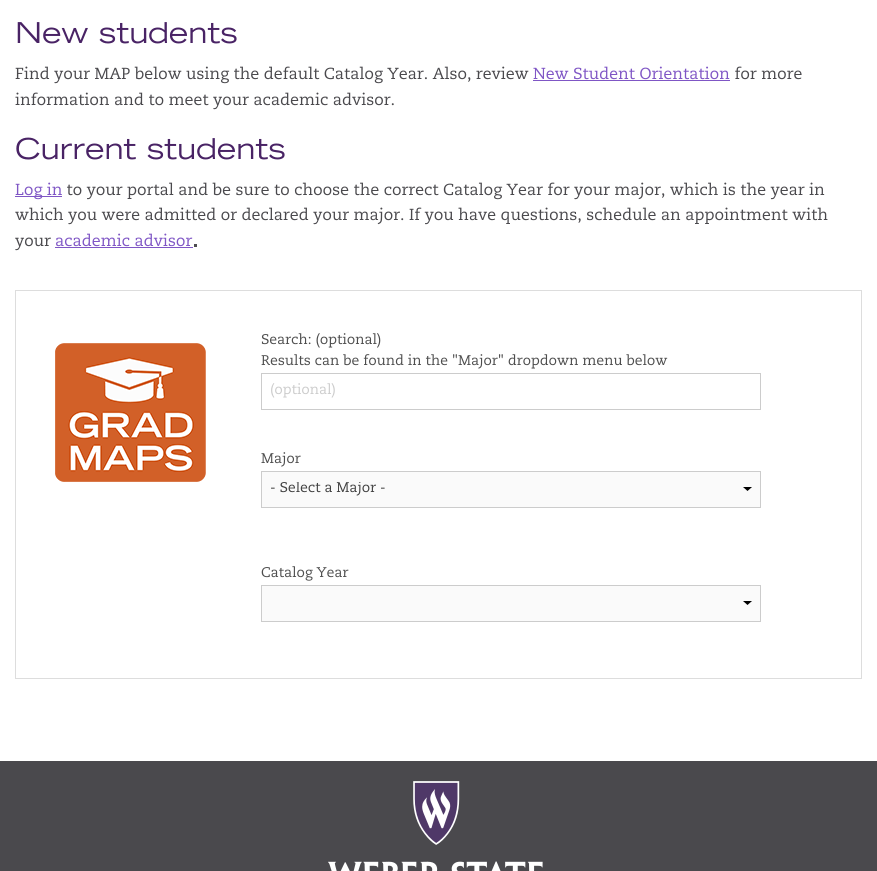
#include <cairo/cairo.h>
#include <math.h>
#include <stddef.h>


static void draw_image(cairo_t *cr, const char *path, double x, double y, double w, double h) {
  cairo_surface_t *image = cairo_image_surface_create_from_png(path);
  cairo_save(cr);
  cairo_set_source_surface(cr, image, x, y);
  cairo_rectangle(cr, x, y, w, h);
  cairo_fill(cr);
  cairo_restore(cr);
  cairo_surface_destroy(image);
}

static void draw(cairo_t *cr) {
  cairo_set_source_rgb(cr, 74 / 255.0, 73 / 255.0, 77 / 255.0);
  cairo_paint(cr);
  cairo_set_source_rgb(cr, 1, 1, 1);
  cairo_rectangle(cr, 0, 0, 877, 761);
  cairo_fill(cr);
  draw_image(cr, "images/1.png", 15, 66, 514, 18);
  draw_image(cr, "images/2.png", 533, 66, 197, 14);
  draw_image(cr, "images/3.png", 735, 66, 67, 14);
  cairo_set_source_rgb(cr, 127 / 255.0, 86 / 255.0, 197 / 255.0);
  cairo_rectangle(cr, 533, 80, 197, 1);
  cairo_fill(cr);
  draw_image(cr, "images/4.png", 15, 92, 379, 18);
  cairo_rectangle(cr, 15, 196, 47, 1);
  cairo_fill(cr);
  draw_image(cr, "images/5.png", 15, 182, 47, 18);
  draw_image(cr, "images/6.png", 67, 182, 758, 18);
  draw_image(cr, "images/7.png", 15, 207, 813, 18);
  draw_image(cr, "images/8.png", 15, 237, 36, 14);
  draw_image(cr, "images/9.png", 56, 233, 137, 14);
  cairo_set_source_rgb(cr, 78 / 255.0, 77 / 255.0, 81 / 255.0);
  cairo_rectangle(cr, 194, 244, 3, 3);
  cairo_fill(cr);
  cairo_set_source_rgb(cr, 127 / 255.0, 86 / 255.0, 197 / 255.0);
  cairo_rectangle(cr, 55, 247, 138, 1);
  cairo_fill(cr);
  cairo_rectangle(cr, 15.5, 290.5, 846, 388);
  cairo_set_source_rgb(cr, 221 / 255.0, 221 / 255.0, 221 / 255.0);
  cairo_set_line_width(cr, 1);
  cairo_stroke(cr);
  draw_image(cr, "images/10.png", 55, 343, 151, 139);
  draw_image(cr, "images/11.png", 261, 333, 120, 15);
  draw_image(cr, "images/12.png", 261, 354, 407, 15);
  cairo_rectangle(cr, 261.5, 373.5, 499, 36);
  cairo_set_source_rgb(cr, 204 / 255.0, 204 / 255.0, 204 / 255.0);
  cairo_stroke(cr);
  draw_image(cr, "images/13.png", 271, 383, 64, 15);
  draw_image(cr, "images/14.png", 261, 452, 40, 15);
  cairo_set_source_rgb(cr, 250 / 255.0, 250 / 255.0, 250 / 255.0);
  cairo_rectangle(cr, 262, 472, 498, 35);
  cairo_fill(cr);
  cairo_set_source_rgb(cr, 0, 0, 0);
  cairo_new_path(cr);
  cairo_move_to(cr, 752, 487);
  cairo_line_to(cr, 747.5, 491);
  cairo_line_to(cr, 743, 487);
  cairo_close_path(cr);
  cairo_fill(cr);
  cairo_rectangle(cr, 261.5, 471.5, 499, 36);
  cairo_set_source_rgb(cr, 204 / 255.0, 204 / 255.0, 204 / 255.0);
  cairo_stroke(cr);
  draw_image(cr, "images/15.png", 271, 482, 114, 14);
  draw_image(cr, "images/16.png", 261, 566, 88, 15);
  cairo_set_source_rgb(cr, 250 / 255.0, 250 / 255.0, 250 / 255.0);
  cairo_rectangle(cr, 262, 586, 498, 35);
  cairo_fill(cr);
  cairo_set_source_rgb(cr, 0, 0, 0);
  cairo_new_path(cr);
  cairo_move_to(cr, 752, 601);
  cairo_line_to(cr, 747.5, 605);
  cairo_line_to(cr, 743, 601);
  cairo_close_path(cr);
  cairo_fill(cr);
  cairo_rectangle(cr, 261.5, 585.5, 499, 36);
  cairo_set_source_rgb(cr, 204 / 255.0, 204 / 255.0, 204 / 255.0);
  cairo_stroke(cr);
  draw_image(cr, "images/17.png", 328, 781, 215, 90);
  cairo_select_font_face(cr, "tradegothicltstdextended", CAIRO_FONT_SLANT_NORMAL, CAIRO_FONT_WEIGHT_NORMAL);
  cairo_set_font_size(cr, 28.75);
  cairo_set_source_rgb(cr, 73 / 255.0, 35 / 255.0, 101 / 255.0);
  cairo_move_to(cr, 15, 43);
  cairo_show_text(cr, "New students");
  cairo_move_to(cr, 15, 159);
  cairo_show_text(cr, "Current students");
}

int main(void) {
  cairo_surface_t *surface = cairo_image_surface_create(CAIRO_FORMAT_RGB24, 877, 871);
  cairo_t *cr = cairo_create(surface);
  cairo_font_options_t *options = cairo_font_options_create();
  cairo_font_options_set_hint_metrics(options, CAIRO_HINT_METRICS_OFF);
  cairo_font_options_set_hint_style(options, CAIRO_HINT_STYLE_NONE);
  cairo_set_font_options(cr, options);
  cairo_set_miter_limit(cr, 4);
  draw(cr);
  cairo_surface_write_to_png(surface, "out.png");
  cairo_font_options_destroy(options);
  cairo_destroy(cr);
  cairo_surface_destroy(surface);
  return 0;
}
